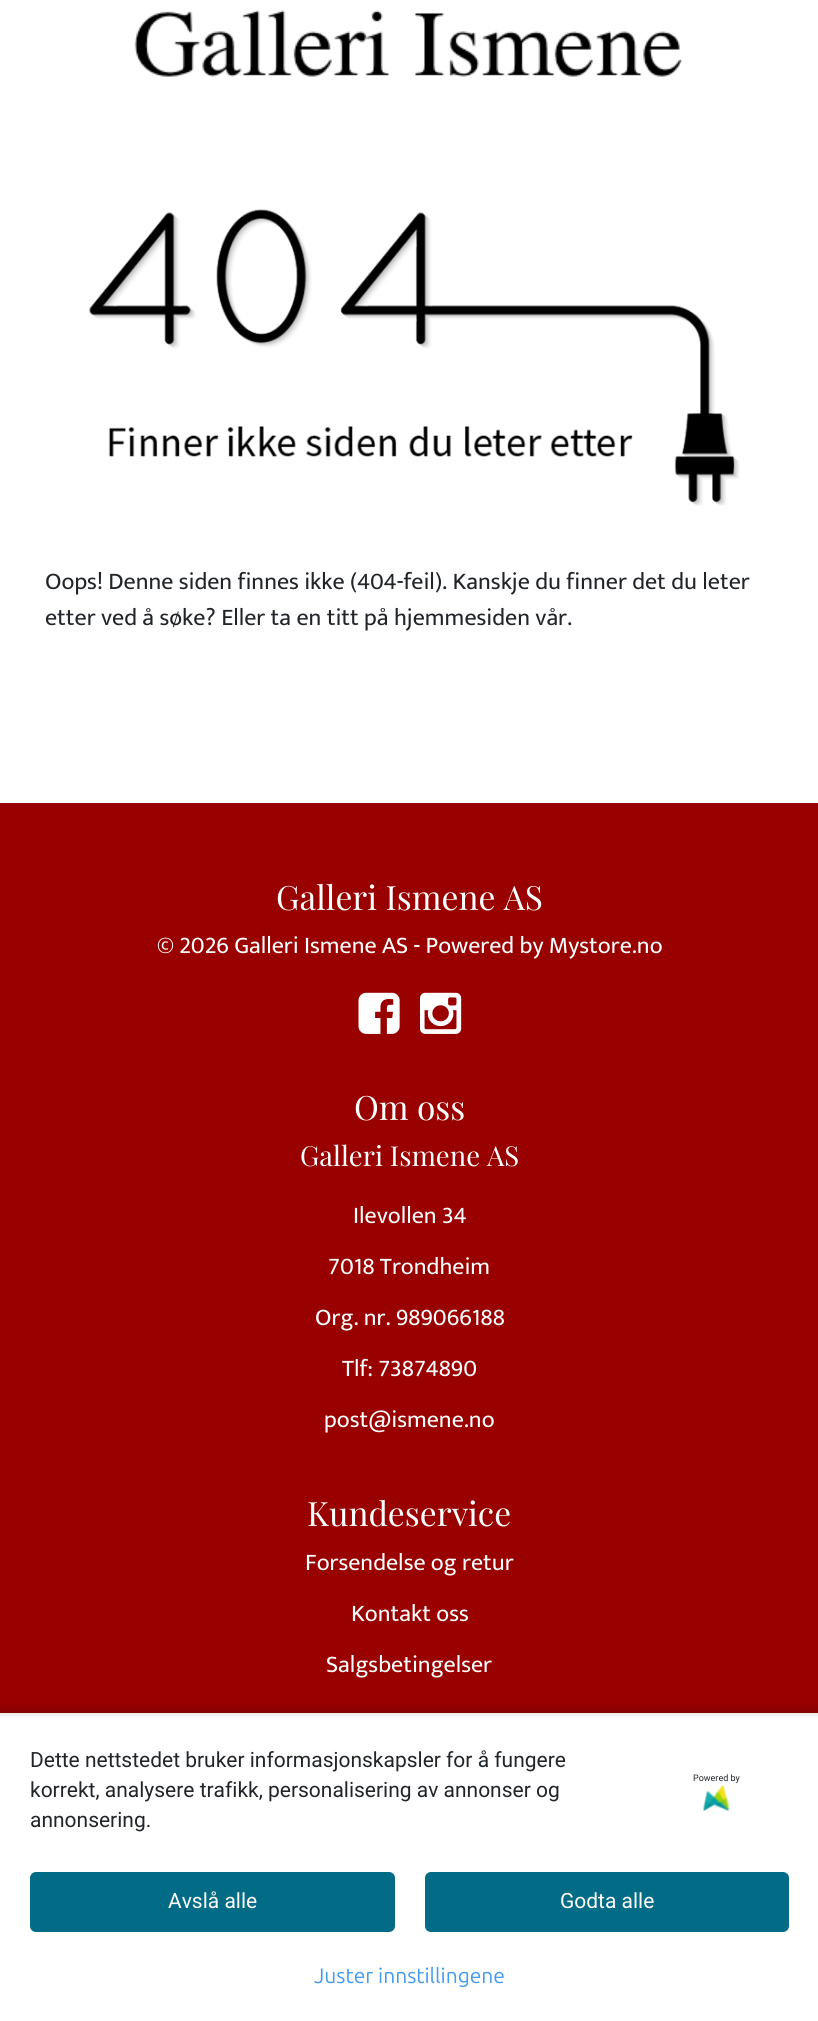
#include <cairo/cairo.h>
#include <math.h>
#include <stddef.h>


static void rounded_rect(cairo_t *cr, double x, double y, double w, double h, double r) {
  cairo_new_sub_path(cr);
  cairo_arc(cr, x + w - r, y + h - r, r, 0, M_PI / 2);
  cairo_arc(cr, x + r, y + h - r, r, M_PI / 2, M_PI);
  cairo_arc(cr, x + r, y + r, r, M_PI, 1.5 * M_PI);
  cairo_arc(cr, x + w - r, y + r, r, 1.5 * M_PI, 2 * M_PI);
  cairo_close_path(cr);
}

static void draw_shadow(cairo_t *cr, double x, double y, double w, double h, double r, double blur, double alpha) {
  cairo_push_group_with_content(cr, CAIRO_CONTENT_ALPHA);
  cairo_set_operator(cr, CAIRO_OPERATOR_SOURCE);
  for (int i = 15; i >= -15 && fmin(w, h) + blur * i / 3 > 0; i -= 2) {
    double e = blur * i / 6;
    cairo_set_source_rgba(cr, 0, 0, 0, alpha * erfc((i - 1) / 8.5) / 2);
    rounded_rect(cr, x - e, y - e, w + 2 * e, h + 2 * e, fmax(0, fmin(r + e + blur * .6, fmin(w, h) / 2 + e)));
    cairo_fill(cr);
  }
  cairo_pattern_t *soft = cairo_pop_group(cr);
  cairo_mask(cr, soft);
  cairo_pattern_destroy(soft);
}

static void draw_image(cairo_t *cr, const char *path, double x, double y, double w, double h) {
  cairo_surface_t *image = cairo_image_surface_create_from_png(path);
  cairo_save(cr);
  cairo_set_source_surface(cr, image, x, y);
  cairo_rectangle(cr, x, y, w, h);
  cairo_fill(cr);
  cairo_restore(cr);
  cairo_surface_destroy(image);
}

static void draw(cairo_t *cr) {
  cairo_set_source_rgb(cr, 1, 1, 1);
  cairo_paint(cr);
  draw_image(cr, "images/1.png", 134, 10, 548, 67);
  draw_image(cr, "images/2.png", 89, 209, 651, 297);
  cairo_set_source_rgb(cr, 153 / 255.0, 0, 0);
  cairo_rectangle(cr, 0, 803, 818, 910);
  cairo_fill(cr);
  draw_image(cr, "images/3.png", 358, 992, 42, 42);
  draw_image(cr, "images/4.png", 420, 992, 42, 42);
  cairo_set_source_rgb(cr, 0, 0, 0);
  draw_shadow(cr, 0, 1713, 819, 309, 0, 7.5, 0.25);
  cairo_set_source_rgb(cr, 1, 1, 1);
  cairo_rectangle(cr, 0, 1716, 818, 305);
  cairo_fill(cr);
  cairo_set_source_rgb(cr, 238 / 255.0, 238 / 255.0, 238 / 255.0);
  cairo_rectangle(cr, 0, 1713, 818, 3);
  cairo_fill(cr);
  draw_image(cr, "images/5.png", 703, 1785, 27, 26);
  cairo_set_source_rgb(cr, 2 / 255.0, 107 / 255.0, 133 / 255.0);
  rounded_rect(cr, 30, 1872, 365, 60, 6);
  cairo_fill(cr);
  rounded_rect(cr, 425, 1872, 364, 60, 6);
  cairo_fill(cr);
  cairo_select_font_face(cr, "Mukta", CAIRO_FONT_SLANT_NORMAL, CAIRO_FONT_WEIGHT_NORMAL);
  cairo_set_font_size(cr, 24);
  cairo_set_source_rgb(cr, 33 / 255.0, 37 / 255.0, 41 / 255.0);
  cairo_move_to(cr, 45, 589);
  cairo_show_text(cr, "Oops! Denne siden finnes ikke (404-feil). Kanskje du finner det du leter");
  cairo_move_to(cr, 45, 625);
  cairo_show_text(cr, "etter ved å søke? Eller ta en titt på hjemmesiden vår.");
  cairo_select_font_face(cr, "Playfair Display", CAIRO_FONT_SLANT_NORMAL, CAIRO_FONT_WEIGHT_NORMAL);
  cairo_set_font_size(cr, 33.5);
  cairo_set_source_rgb(cr, 1, 1, 1);
  cairo_move_to(cr, 276, 910);
  cairo_show_text(cr, "Galleri Ismene AS");
  cairo_select_font_face(cr, "Mukta", CAIRO_FONT_SLANT_NORMAL, CAIRO_FONT_WEIGHT_NORMAL);
  cairo_set_font_size(cr, 24);
  cairo_move_to(cr, 157, 953);
  cairo_show_text(cr, "© 2026 Galleri Ismene AS - Powered by Mystore.no");
  cairo_select_font_face(cr, "Playfair Display", CAIRO_FONT_SLANT_NORMAL, CAIRO_FONT_WEIGHT_NORMAL);
  cairo_set_font_size(cr, 33.5);
  cairo_move_to(cr, 354, 1120);
  cairo_show_text(cr, "Om oss");
  cairo_set_font_size(cr, 27.5);
  cairo_move_to(cr, 300, 1166);
  cairo_show_text(cr, "Galleri Ismene AS");
  cairo_select_font_face(cr, "Mukta", CAIRO_FONT_SLANT_NORMAL, CAIRO_FONT_WEIGHT_NORMAL);
  cairo_set_font_size(cr, 24);
  cairo_move_to(cr, 353, 1223);
  cairo_show_text(cr, "Ilevollen 34");
  cairo_move_to(cr, 328, 1274);
  cairo_show_text(cr, "7018 Trondheim");
  cairo_move_to(cr, 315, 1325);
  cairo_show_text(cr, "Org. nr. 989066188");
  cairo_move_to(cr, 342, 1376);
  cairo_show_text(cr, "Tlf: 73874890");
  cairo_move_to(cr, 324, 1427);
  cairo_show_text(cr, "post@ismene.no");
  cairo_select_font_face(cr, "Playfair Display", CAIRO_FONT_SLANT_NORMAL, CAIRO_FONT_WEIGHT_NORMAL);
  cairo_set_font_size(cr, 33.5);
  cairo_move_to(cr, 307, 1526);
  cairo_show_text(cr, "Kundeservice");
  cairo_select_font_face(cr, "Mukta", CAIRO_FONT_SLANT_NORMAL, CAIRO_FONT_WEIGHT_NORMAL);
  cairo_set_font_size(cr, 24);
  cairo_move_to(cr, 305, 1570);
  cairo_show_text(cr, "Forsendelse og retur");
  cairo_move_to(cr, 351, 1621);
  cairo_show_text(cr, "Kontakt oss");
  cairo_move_to(cr, 326, 1672);
  cairo_show_text(cr, "Salgsbetingelser");
  cairo_select_font_face(cr, "Roboto", CAIRO_FONT_SLANT_NORMAL, CAIRO_FONT_WEIGHT_NORMAL);
  cairo_set_font_size(cr, 21);
  cairo_set_source_rgb(cr, 33 / 255.0, 37 / 255.0, 41 / 255.0);
  cairo_move_to(cr, 30, 1767);
  cairo_show_text(cr, "Dette nettstedet bruker informasjonskapsler for å fungere");
  cairo_move_to(cr, 30, 1797);
  cairo_show_text(cr, "korrekt, analysere trafikk, personalisering av annonser og");
  cairo_move_to(cr, 30, 1827);
  cairo_show_text(cr, "annonsering.");
  cairo_set_font_size(cr, 9);
  cairo_move_to(cr, 693, 1781);
  cairo_show_text(cr, "Powered by");
  cairo_set_font_size(cr, 21);
  cairo_set_source_rgb(cr, 1, 1, 1);
  cairo_move_to(cr, 168, 1908);
  cairo_show_text(cr, "Avslå alle");
  cairo_move_to(cr, 560, 1908);
  cairo_show_text(cr, "Godta alle");
  cairo_select_font_face(cr, "Ubuntu", CAIRO_FONT_SLANT_NORMAL, CAIRO_FONT_WEIGHT_NORMAL);
  cairo_set_source_rgb(cr, 64 / 255.0, 154 / 255.0, 239 / 255.0);
  cairo_move_to(cr, 314, 1983);
  cairo_show_text(cr, "Juster innstillingene");
}

int main(void) {
  cairo_surface_t *surface = cairo_image_surface_create(CAIRO_FORMAT_RGB24, 818, 2021);
  cairo_t *cr = cairo_create(surface);
  cairo_font_options_t *options = cairo_font_options_create();
  cairo_font_options_set_hint_metrics(options, CAIRO_HINT_METRICS_OFF);
  cairo_font_options_set_hint_style(options, CAIRO_HINT_STYLE_NONE);
  cairo_set_font_options(cr, options);
  cairo_set_miter_limit(cr, 4);
  draw(cr);
  cairo_surface_write_to_png(surface, "out.png");
  cairo_font_options_destroy(options);
  cairo_destroy(cr);
  cairo_surface_destroy(surface);
  return 0;
}
